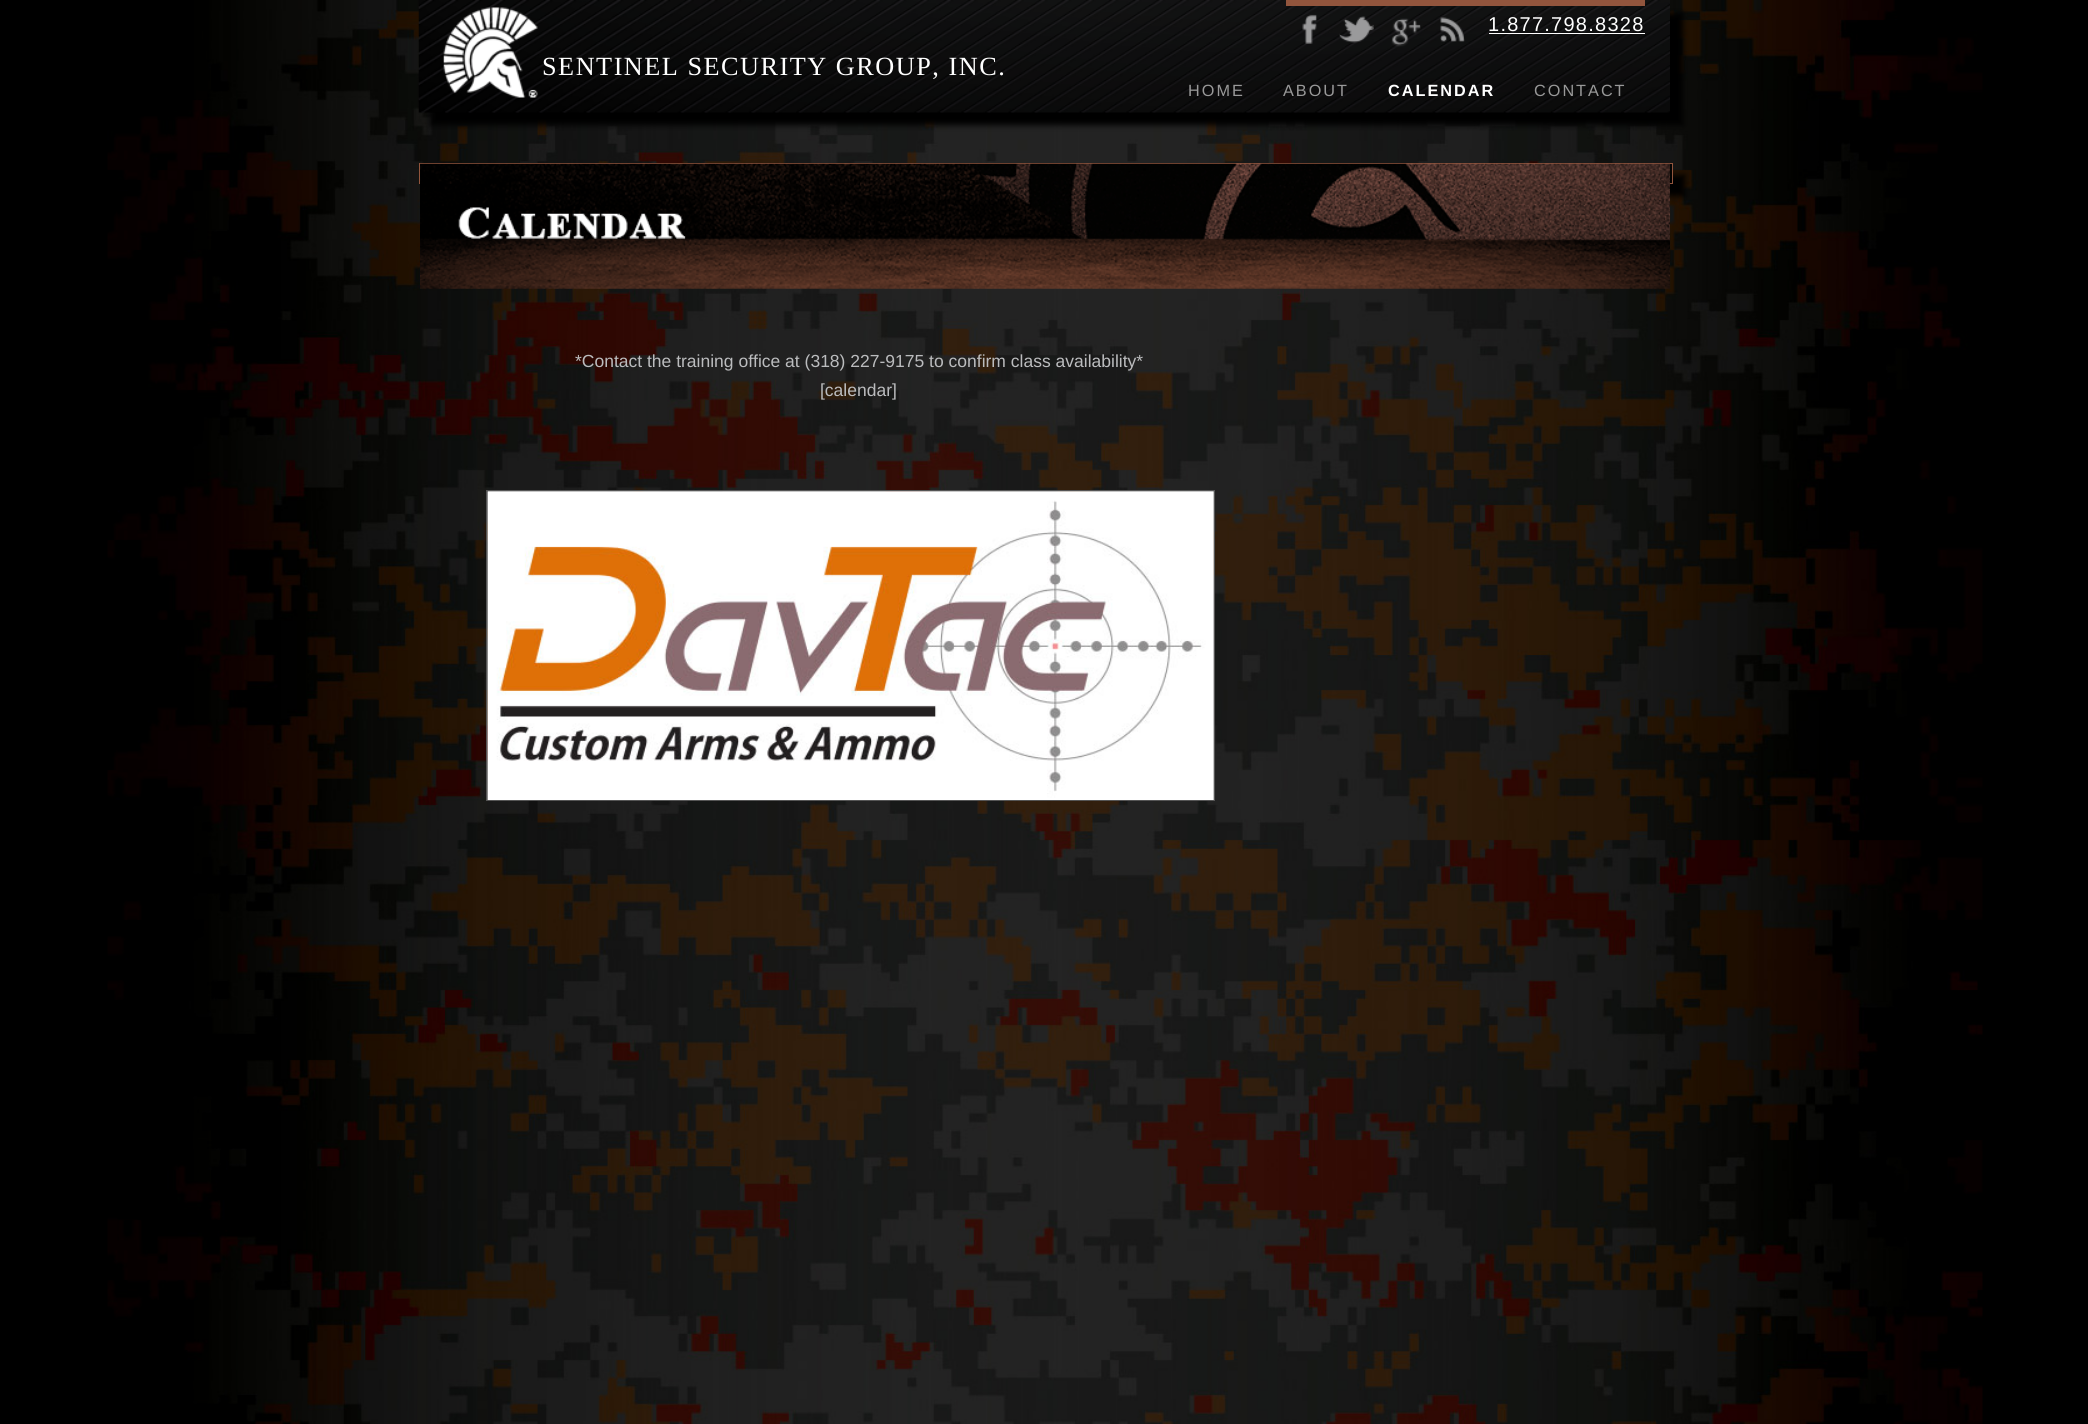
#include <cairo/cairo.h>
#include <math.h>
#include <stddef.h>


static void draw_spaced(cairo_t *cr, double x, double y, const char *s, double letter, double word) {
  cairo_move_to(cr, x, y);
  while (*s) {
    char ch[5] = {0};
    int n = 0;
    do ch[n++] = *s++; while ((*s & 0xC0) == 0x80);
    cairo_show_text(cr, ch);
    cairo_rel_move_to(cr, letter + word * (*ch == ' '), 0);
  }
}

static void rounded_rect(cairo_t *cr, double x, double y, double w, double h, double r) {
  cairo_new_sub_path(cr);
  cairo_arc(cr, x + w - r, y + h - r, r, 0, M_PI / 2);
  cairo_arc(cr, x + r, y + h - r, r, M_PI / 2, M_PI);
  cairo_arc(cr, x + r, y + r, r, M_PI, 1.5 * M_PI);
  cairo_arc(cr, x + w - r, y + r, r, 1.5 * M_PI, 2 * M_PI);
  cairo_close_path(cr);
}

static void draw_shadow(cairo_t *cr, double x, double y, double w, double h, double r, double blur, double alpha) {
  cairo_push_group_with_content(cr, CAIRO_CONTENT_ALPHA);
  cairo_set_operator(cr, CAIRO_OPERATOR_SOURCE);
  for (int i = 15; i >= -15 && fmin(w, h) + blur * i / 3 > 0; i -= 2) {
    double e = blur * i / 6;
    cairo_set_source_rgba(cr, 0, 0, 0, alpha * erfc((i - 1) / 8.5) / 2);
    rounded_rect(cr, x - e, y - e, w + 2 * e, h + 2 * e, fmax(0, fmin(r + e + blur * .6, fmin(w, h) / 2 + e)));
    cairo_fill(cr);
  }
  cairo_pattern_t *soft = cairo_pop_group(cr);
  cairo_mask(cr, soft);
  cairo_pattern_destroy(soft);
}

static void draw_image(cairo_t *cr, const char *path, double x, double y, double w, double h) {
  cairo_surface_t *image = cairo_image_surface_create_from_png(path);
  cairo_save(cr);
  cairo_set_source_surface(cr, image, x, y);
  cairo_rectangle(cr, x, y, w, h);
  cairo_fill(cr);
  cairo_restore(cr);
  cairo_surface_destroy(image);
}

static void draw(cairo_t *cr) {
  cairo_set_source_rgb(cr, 0, 0, 0);
  cairo_paint(cr);
  draw_image(cr, "images/1.png", 107, 0, 1876, 1424);
  draw_shadow(cr, 431, 13, 1252, 112, 0, 3, 1);
  draw_image(cr, "images/2.png", 418, 0, 1252, 113);
  cairo_set_source_rgb(cr, 146 / 255.0, 85 / 255.0, 61 / 255.0);
  cairo_rectangle(cr, 1286, 0, 359, 6);
  cairo_fill(cr);
  draw_image(cr, "images/3.png", 1302, 14, 15, 30);
  draw_image(cr, "images/4.png", 1339, 16, 35, 27);
  draw_image(cr, "images/5.png", 1391, 18, 30, 29);
  draw_image(cr, "images/6.png", 1440, 17, 25, 25);
  cairo_set_source_rgb(cr, 1, 1, 1);
  cairo_rectangle(cr, 1489, 33, 156, 1);
  cairo_fill(cr);
  draw_image(cr, "images/7.png", 443, 7, 95, 91);
  cairo_set_source_rgb(cr, 0, 0, 0);
  draw_shadow(cr, 431, 175, 1254, 21, 0, 3, 1);
  cairo_set_source_rgba(cr, 0, 0, 0, 0.85);
  cairo_rectangle(cr, 1670, 164, 2, 19);
  cairo_fill(cr);
  cairo_rectangle(cr, 419.5, 163.5, 1253, 20);
  cairo_set_source_rgb(cr, 146 / 255.0, 85 / 255.0, 61 / 255.0);
  cairo_set_line_width(cr, 1);
  cairo_stroke(cr);
  draw_image(cr, "images/8.png", 420, 163, 1250, 126);
  cairo_rectangle(cr, 486.5, 490.5, 728, 310);
  cairo_set_source_rgb(cr, 85 / 255.0, 85 / 255.0, 85 / 255.0);
  cairo_stroke(cr);
  draw_image(cr, "images/9.png", 487, 491, 727, 309);
  cairo_select_font_face(cr, "Liberation Sans", CAIRO_FONT_SLANT_NORMAL, CAIRO_FONT_WEIGHT_NORMAL);
  cairo_set_font_size(cr, 20);
  cairo_set_source_rgb(cr, 1, 1, 1);
  draw_spaced(cr, 1488, 31, "1.877.798.8328", 1.25, 0);
  cairo_select_font_face(cr, "Liberation Serif", CAIRO_FONT_SLANT_NORMAL, CAIRO_FONT_WEIGHT_NORMAL);
  cairo_set_font_size(cr, 26.25);
  draw_spaced(cr, 542, 75, "SENTINEL SECURITY GROUP, INC.", 1.5, 0);
  cairo_select_font_face(cr, "Liberation Sans", CAIRO_FONT_SLANT_NORMAL, CAIRO_FONT_WEIGHT_NORMAL);
  cairo_set_font_size(cr, 16.25);
  cairo_set_source_rgb(cr, 153 / 255.0, 153 / 255.0, 153 / 255.0);
  draw_spaced(cr, 1188, 96, "HOME", 2, 0);
  draw_spaced(cr, 1283, 96, "ABOUT", 2, 0);
  cairo_select_font_face(cr, "Liberation Sans", CAIRO_FONT_SLANT_NORMAL, CAIRO_FONT_WEIGHT_BOLD);
  cairo_set_source_rgb(cr, 1, 1, 1);
  draw_spaced(cr, 1388, 96, "CALENDAR", 2, 0);
  cairo_select_font_face(cr, "Liberation Sans", CAIRO_FONT_SLANT_NORMAL, CAIRO_FONT_WEIGHT_NORMAL);
  cairo_set_source_rgb(cr, 153 / 255.0, 153 / 255.0, 153 / 255.0);
  draw_spaced(cr, 1534, 96, "CONTACT", 2, 0);
  cairo_set_font_size(cr, 17.5);
  cairo_set_source_rgb(cr, 187 / 255.0, 188 / 255.0, 190 / 255.0);
  cairo_move_to(cr, 575, 367);
  cairo_show_text(cr, "*Contact the training office at (318) 227-9175 to confirm class availability*");
  cairo_move_to(cr, 820, 396);
  cairo_show_text(cr, "[calendar]");
}

int main(void) {
  cairo_surface_t *surface = cairo_image_surface_create(CAIRO_FORMAT_RGB24, 2088, 1424);
  cairo_t *cr = cairo_create(surface);
  cairo_font_options_t *options = cairo_font_options_create();
  cairo_font_options_set_hint_metrics(options, CAIRO_HINT_METRICS_OFF);
  cairo_font_options_set_hint_style(options, CAIRO_HINT_STYLE_NONE);
  cairo_set_font_options(cr, options);
  cairo_set_miter_limit(cr, 4);
  draw(cr);
  cairo_surface_write_to_png(surface, "out.png");
  cairo_font_options_destroy(options);
  cairo_destroy(cr);
  cairo_surface_destroy(surface);
  return 0;
}
